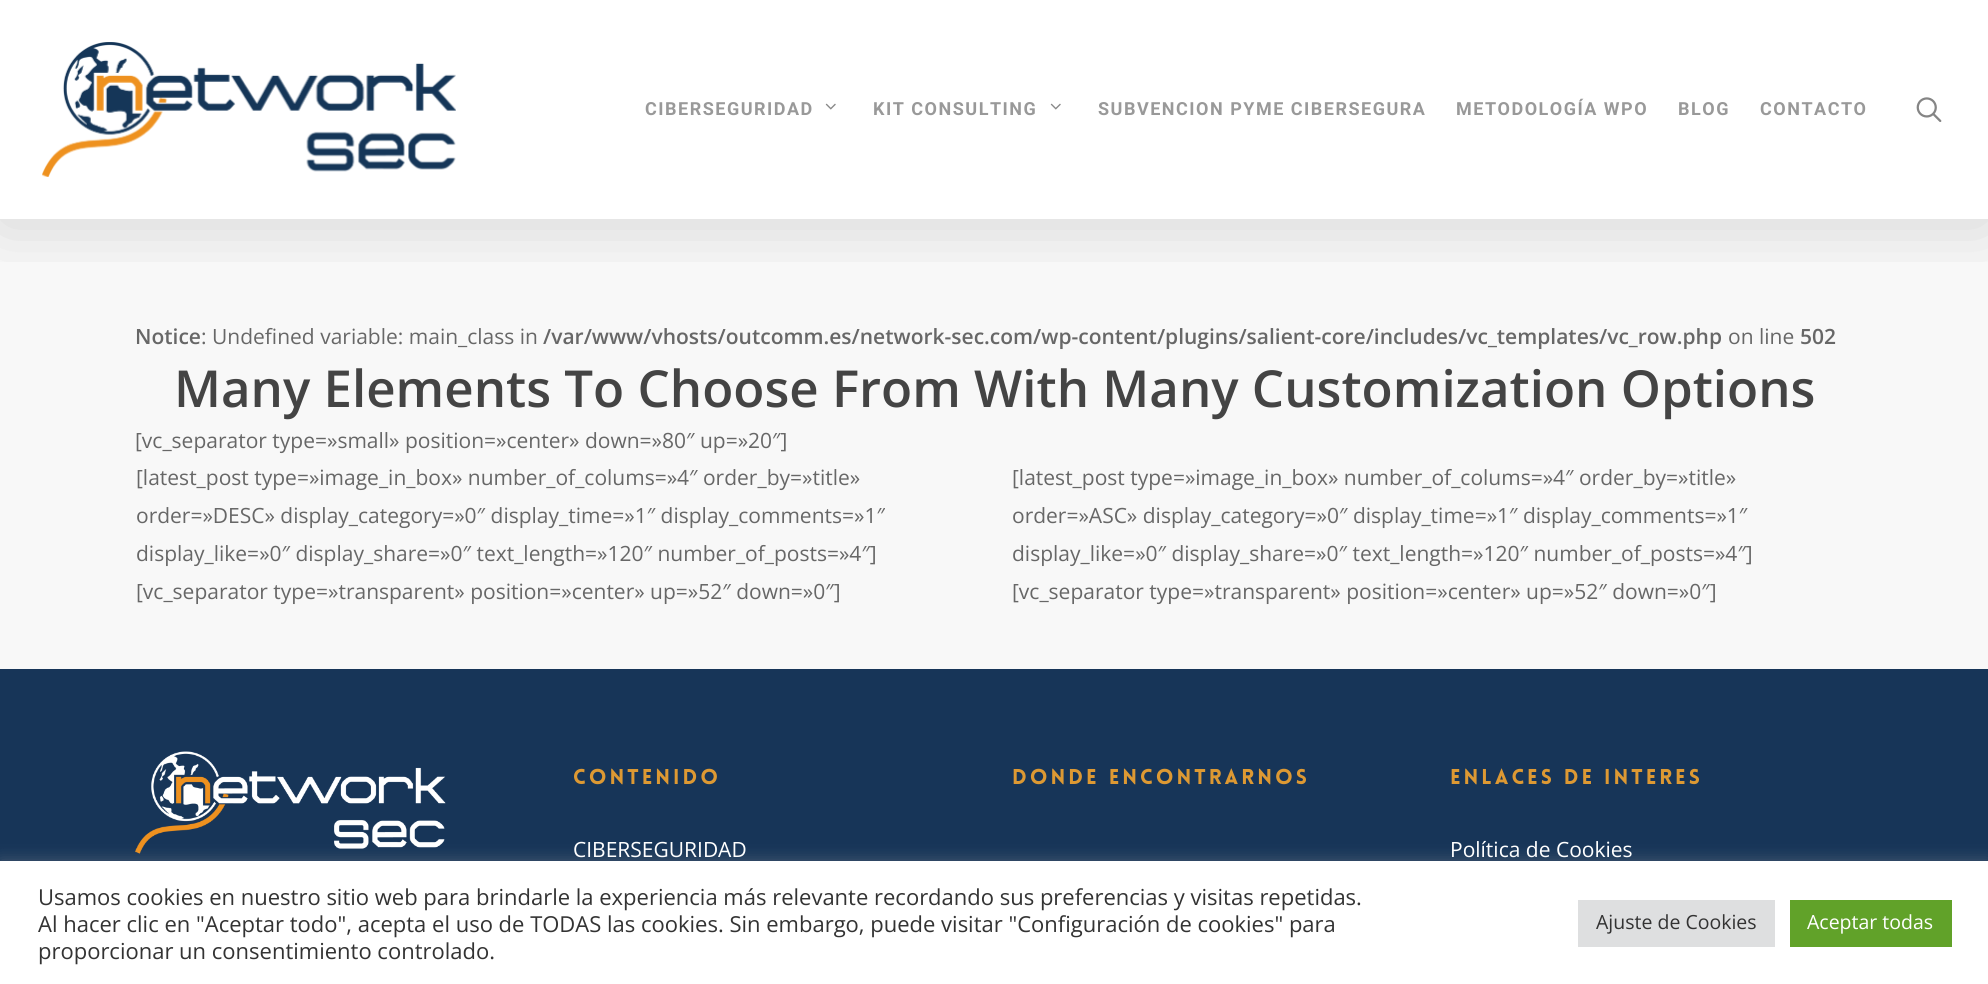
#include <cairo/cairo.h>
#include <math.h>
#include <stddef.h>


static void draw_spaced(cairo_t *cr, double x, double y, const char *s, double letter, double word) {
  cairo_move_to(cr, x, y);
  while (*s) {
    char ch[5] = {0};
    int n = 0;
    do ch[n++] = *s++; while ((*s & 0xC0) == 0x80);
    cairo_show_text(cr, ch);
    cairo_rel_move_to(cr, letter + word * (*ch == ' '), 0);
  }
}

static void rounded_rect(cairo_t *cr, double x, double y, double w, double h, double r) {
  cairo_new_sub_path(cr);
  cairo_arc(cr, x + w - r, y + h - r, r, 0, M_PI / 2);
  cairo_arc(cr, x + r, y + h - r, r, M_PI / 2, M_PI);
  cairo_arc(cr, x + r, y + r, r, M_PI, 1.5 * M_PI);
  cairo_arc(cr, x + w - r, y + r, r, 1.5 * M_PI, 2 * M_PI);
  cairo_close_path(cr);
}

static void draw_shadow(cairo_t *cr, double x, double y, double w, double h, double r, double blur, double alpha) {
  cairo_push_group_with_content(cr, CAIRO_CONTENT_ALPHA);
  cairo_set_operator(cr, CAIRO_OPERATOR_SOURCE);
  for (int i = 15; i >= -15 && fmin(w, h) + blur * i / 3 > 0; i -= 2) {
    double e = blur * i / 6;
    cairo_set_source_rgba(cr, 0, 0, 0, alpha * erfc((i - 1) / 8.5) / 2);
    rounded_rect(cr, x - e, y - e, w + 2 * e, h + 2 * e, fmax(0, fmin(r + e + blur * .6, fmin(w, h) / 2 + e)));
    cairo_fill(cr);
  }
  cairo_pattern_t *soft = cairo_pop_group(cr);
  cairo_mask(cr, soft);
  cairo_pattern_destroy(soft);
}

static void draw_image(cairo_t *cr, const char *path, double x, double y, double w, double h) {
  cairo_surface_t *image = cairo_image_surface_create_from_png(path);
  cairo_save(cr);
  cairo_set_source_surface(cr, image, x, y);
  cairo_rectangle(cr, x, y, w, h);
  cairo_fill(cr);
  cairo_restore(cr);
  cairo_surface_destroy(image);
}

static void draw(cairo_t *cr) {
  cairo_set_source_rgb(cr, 1, 1, 1);
  cairo_paint(cr);
  cairo_set_source_rgb(cr, 248 / 255.0, 248 / 255.0, 248 / 255.0);
  cairo_rectangle(cr, 0, 219, 1988, 450);
  cairo_fill(cr);
  cairo_save(cr);
  cairo_rectangle(cr, 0, 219, 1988, 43);
  cairo_clip(cr);
  cairo_set_source_rgb(cr, 0, 0, 0);
  draw_shadow(cr, 0, 5, 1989, 219, 0, 34, 0.15);
  cairo_restore(cr);
  draw_image(cr, "images/1.png", 42, 42, 414, 135);
  draw_image(cr, "images/2.png", 825, 103, 11, 7);
  draw_image(cr, "images/2.png", 1050, 103, 11, 7);
  draw_image(cr, "images/3.png", 1916, 97, 26, 25);
  cairo_set_source_rgb(cr, 23 / 255.0, 53 / 255.0, 88 / 255.0);
  cairo_rectangle(cr, 0, 669, 1988, 192);
  cairo_fill(cr);
  draw_image(cr, "images/4.png", 135, 751, 311, 103);
  cairo_set_source_rgb(cr, 172 / 255.0, 171 / 255.0, 171 / 255.0);
  draw_shadow(cr, 0, 860, 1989, 123, 0, 7.5, 0.3);
  cairo_set_source_rgb(cr, 1, 1, 1);
  cairo_rectangle(cr, 0, 861, 1988, 123);
  cairo_fill(cr);
  cairo_set_source_rgb(cr, 222 / 255.0, 223 / 255.0, 224 / 255.0);
  cairo_rectangle(cr, 1578, 900, 197, 47);
  cairo_fill(cr);
  cairo_set_source_rgb(cr, 97 / 255.0, 162 / 255.0, 41 / 255.0);
  cairo_rectangle(cr, 1790, 900, 162, 47);
  cairo_fill(cr);
  cairo_select_font_face(cr, "Roboto", CAIRO_FONT_SLANT_NORMAL, CAIRO_FONT_WEIGHT_BOLD);
  cairo_set_font_size(cr, 18);
  cairo_set_source_rgb(cr, 153 / 255.0, 153 / 255.0, 153 / 255.0);
  draw_spaced(cr, 645, 115, "CIBERSEGURIDAD", 1.5, 0);
  draw_spaced(cr, 873, 115, "KIT CONSULTING", 1.5, 0);
  draw_spaced(cr, 1098, 115, "SUBVENCION PYME CIBERSEGURA", 1.5, 0);
  draw_spaced(cr, 1456, 115, "METODOLOGÍA WPO", 1.5, 0);
  draw_spaced(cr, 1678, 115, "BLOG", 1.5, 0);
  draw_spaced(cr, 1760, 115, "CONTACTO", 1.5, 0);
  cairo_select_font_face(cr, "Open Sans SemiBold", CAIRO_FONT_SLANT_NORMAL, CAIRO_FONT_WEIGHT_NORMAL);
  cairo_set_font_size(cr, 21);
  cairo_set_source_rgb(cr, 103 / 255.0, 103 / 255.0, 103 / 255.0);
  cairo_move_to(cr, 135, 344);
  cairo_show_text(cr, "Notice");
  cairo_select_font_face(cr, "Open Sans", CAIRO_FONT_SLANT_NORMAL, CAIRO_FONT_WEIGHT_NORMAL);
  cairo_move_to(cr, 201, 344);
  cairo_show_text(cr, ": Undefined variable: main_class in");
  cairo_select_font_face(cr, "Open Sans SemiBold", CAIRO_FONT_SLANT_NORMAL, CAIRO_FONT_WEIGHT_NORMAL);
  cairo_move_to(cr, 543, 344);
  cairo_show_text(cr, "/var/www/vhosts/outcomm.es/network-sec.com/wp-content/plugins/salient-core/includes/vc_templates/vc_row.php");
  cairo_select_font_face(cr, "Open Sans", CAIRO_FONT_SLANT_NORMAL, CAIRO_FONT_WEIGHT_NORMAL);
  cairo_move_to(cr, 1728, 344);
  cairo_show_text(cr, "on line");
  cairo_select_font_face(cr, "Open Sans SemiBold", CAIRO_FONT_SLANT_NORMAL, CAIRO_FONT_WEIGHT_NORMAL);
  cairo_move_to(cr, 1800, 344);
  cairo_show_text(cr, "502");
  cairo_set_font_size(cr, 51);
  cairo_set_source_rgb(cr, 68 / 255.0, 68 / 255.0, 68 / 255.0);
  cairo_move_to(cr, 174, 407);
  cairo_show_text(cr, "Many Elements To Choose From With Many Customization Options");
  cairo_select_font_face(cr, "Open Sans", CAIRO_FONT_SLANT_NORMAL, CAIRO_FONT_WEIGHT_NORMAL);
  cairo_set_font_size(cr, 21);
  cairo_set_source_rgb(cr, 103 / 255.0, 103 / 255.0, 103 / 255.0);
  cairo_move_to(cr, 135, 448);
  cairo_show_text(cr, "[vc_separator type=»small» position=»center» down=»80″ up=»20″]");
  cairo_move_to(cr, 136, 485);
  cairo_show_text(cr, "[latest_post type=»image_in_box» number_of_colums=»4″ order_by=»title»");
  cairo_move_to(cr, 136, 523);
  cairo_show_text(cr, "order=»DESC» display_category=»0″ display_time=»1″ display_comments=»1″");
  cairo_move_to(cr, 136, 561);
  cairo_show_text(cr, "display_like=»0″ display_share=»0″ text_length=»120″ number_of_posts=»4″]");
  cairo_move_to(cr, 136, 599);
  cairo_show_text(cr, "[vc_separator type=»transparent» position=»center» up=»52″ down=»0″]");
  cairo_move_to(cr, 1012, 485);
  cairo_show_text(cr, "[latest_post type=»image_in_box» number_of_colums=»4″ order_by=»title»");
  cairo_move_to(cr, 1012, 523);
  cairo_show_text(cr, "order=»ASC» display_category=»0″ display_time=»1″ display_comments=»1″");
  cairo_move_to(cr, 1012, 561);
  cairo_show_text(cr, "display_like=»0″ display_share=»0″ text_length=»120″ number_of_posts=»4″]");
  cairo_move_to(cr, 1012, 599);
  cairo_show_text(cr, "[vc_separator type=»transparent» position=»center» up=»52″ down=»0″]");
  cairo_select_font_face(cr, "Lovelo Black", CAIRO_FONT_SLANT_NORMAL, CAIRO_FONT_WEIGHT_NORMAL);
  cairo_set_source_rgb(cr, 221 / 255.0, 153 / 255.0, 51 / 255.0);
  draw_spaced(cr, 573, 784, "CONTENIDO", 3, 0);
  cairo_select_font_face(cr, "Open Sans", CAIRO_FONT_SLANT_NORMAL, CAIRO_FONT_WEIGHT_NORMAL);
  cairo_set_source_rgb(cr, 1, 1, 1);
  cairo_move_to(cr, 573, 857);
  cairo_show_text(cr, "CIBERSEGURIDAD");
  cairo_select_font_face(cr, "Lovelo Black", CAIRO_FONT_SLANT_NORMAL, CAIRO_FONT_WEIGHT_NORMAL);
  cairo_set_source_rgb(cr, 221 / 255.0, 153 / 255.0, 51 / 255.0);
  draw_spaced(cr, 1012, 784, "DONDE ENCONTRARNOS", 3, 0);
  draw_spaced(cr, 1450, 784, "ENLACES DE INTERES", 3, 0);
  cairo_select_font_face(cr, "Open Sans", CAIRO_FONT_SLANT_NORMAL, CAIRO_FONT_WEIGHT_NORMAL);
  cairo_set_source_rgb(cr, 1, 1, 1);
  cairo_move_to(cr, 1450, 857);
  cairo_show_text(cr, "Política de Cookies");
  cairo_set_font_size(cr, 22);
  cairo_set_source_rgb(cr, 51 / 255.0, 51 / 255.0, 51 / 255.0);
  cairo_move_to(cr, 38, 905);
  cairo_show_text(cr, "Usamos cookies en nuestro sitio web para brindarle la experiencia más relevante recordando sus preferencias y visitas repetidas.");
  cairo_move_to(cr, 38, 932);
  cairo_show_text(cr, "Al hacer clic en \"Aceptar todo\", acepta el uso de TODAS las cookies. Sin embargo, puede visitar \"Configuración de cookies\" para");
  cairo_move_to(cr, 38, 959);
  cairo_show_text(cr, "proporcionar un consentimiento controlado.");
  cairo_set_font_size(cr, 19.5);
  cairo_move_to(cr, 1596, 929);
  cairo_show_text(cr, "Ajuste de Cookies");
  cairo_set_source_rgb(cr, 1, 1, 1);
  cairo_move_to(cr, 1807, 929);
  cairo_show_text(cr, "Aceptar todas");
}

int main(void) {
  cairo_surface_t *surface = cairo_image_surface_create(CAIRO_FORMAT_RGB24, 1988, 984);
  cairo_t *cr = cairo_create(surface);
  cairo_font_options_t *options = cairo_font_options_create();
  cairo_font_options_set_hint_metrics(options, CAIRO_HINT_METRICS_OFF);
  cairo_font_options_set_hint_style(options, CAIRO_HINT_STYLE_NONE);
  cairo_set_font_options(cr, options);
  cairo_set_miter_limit(cr, 4);
  draw(cr);
  cairo_surface_write_to_png(surface, "out.png");
  cairo_font_options_destroy(options);
  cairo_destroy(cr);
  cairo_surface_destroy(surface);
  return 0;
}
